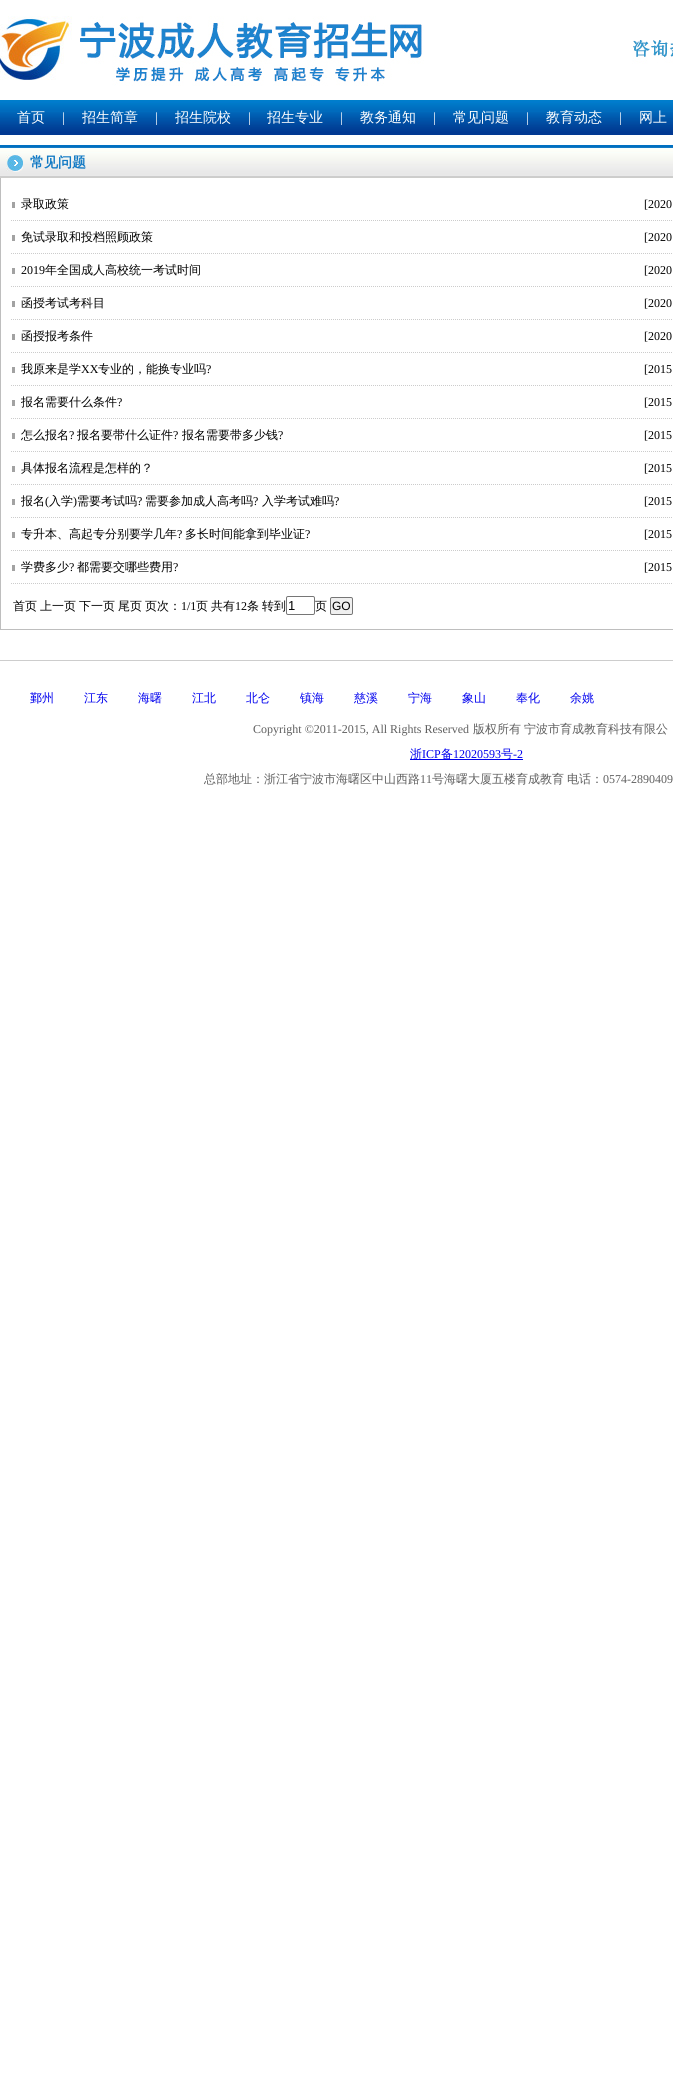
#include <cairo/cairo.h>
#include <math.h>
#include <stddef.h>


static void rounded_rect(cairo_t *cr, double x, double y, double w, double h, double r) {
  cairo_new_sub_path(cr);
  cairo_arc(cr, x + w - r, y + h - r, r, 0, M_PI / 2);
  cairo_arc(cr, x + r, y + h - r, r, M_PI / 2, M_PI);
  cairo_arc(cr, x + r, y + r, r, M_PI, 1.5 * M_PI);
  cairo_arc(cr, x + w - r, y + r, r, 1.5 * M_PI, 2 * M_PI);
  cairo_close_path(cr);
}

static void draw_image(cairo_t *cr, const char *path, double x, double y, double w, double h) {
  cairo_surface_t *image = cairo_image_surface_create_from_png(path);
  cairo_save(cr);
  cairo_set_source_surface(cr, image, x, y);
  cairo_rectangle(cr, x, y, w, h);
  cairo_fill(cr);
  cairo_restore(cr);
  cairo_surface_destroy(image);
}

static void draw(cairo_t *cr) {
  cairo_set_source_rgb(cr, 1, 1, 1);
  cairo_paint(cr);
  draw_image(cr, "images/1.png", 0, 100, 673, 35);
  draw_image(cr, "images/2.png", 0, 16, 673, 70);
  draw_image(cr, "images/3.png", 0, 145, 673, 32);
  cairo_set_source_rgb(cr, 205 / 255.0, 205 / 255.0, 203 / 255.0);
  cairo_rectangle(cr, 0, 177, 673, 1);
  cairo_fill(cr);
  draw_image(cr, "images/4.png", 6, 155, 17, 17);
  cairo_set_source_rgb(cr, 190 / 255.0, 190 / 255.0, 190 / 255.0);
  cairo_rectangle(cr, 0, 629, 673, 1);
  cairo_fill(cr);
  cairo_rectangle(cr, 0, 178, 1, 452);
  cairo_fill(cr);
  cairo_set_source_rgb(cr, 162 / 255.0, 162 / 255.0, 162 / 255.0);
  cairo_rectangle(cr, 12, 202, 3, 6);
  cairo_fill(cr);
  cairo_new_path(cr);
  cairo_move_to(cr, 11, 220.5);
  cairo_line_to(cr, 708, 220.5);
  cairo_set_source_rgb(cr, 204 / 255.0, 204 / 255.0, 204 / 255.0);
  cairo_set_line_width(cr, 1);
  cairo_set_dash(cr, (double[]){1, 1}, 2, 0);
  cairo_stroke(cr);
  cairo_set_source_rgb(cr, 162 / 255.0, 162 / 255.0, 162 / 255.0);
  cairo_rectangle(cr, 12, 235, 3, 6);
  cairo_fill(cr);
  cairo_new_path(cr);
  cairo_move_to(cr, 11, 253.5);
  cairo_line_to(cr, 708, 253.5);
  cairo_set_source_rgb(cr, 204 / 255.0, 204 / 255.0, 204 / 255.0);
  cairo_stroke(cr);
  cairo_set_source_rgb(cr, 162 / 255.0, 162 / 255.0, 162 / 255.0);
  cairo_rectangle(cr, 12, 268, 3, 6);
  cairo_fill(cr);
  cairo_new_path(cr);
  cairo_move_to(cr, 11, 286.5);
  cairo_line_to(cr, 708, 286.5);
  cairo_set_source_rgb(cr, 204 / 255.0, 204 / 255.0, 204 / 255.0);
  cairo_stroke(cr);
  cairo_set_source_rgb(cr, 162 / 255.0, 162 / 255.0, 162 / 255.0);
  cairo_rectangle(cr, 12, 301, 3, 6);
  cairo_fill(cr);
  cairo_new_path(cr);
  cairo_move_to(cr, 11, 319.5);
  cairo_line_to(cr, 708, 319.5);
  cairo_set_source_rgb(cr, 204 / 255.0, 204 / 255.0, 204 / 255.0);
  cairo_stroke(cr);
  cairo_set_source_rgb(cr, 162 / 255.0, 162 / 255.0, 162 / 255.0);
  cairo_rectangle(cr, 12, 334, 3, 6);
  cairo_fill(cr);
  cairo_new_path(cr);
  cairo_move_to(cr, 11, 352.5);
  cairo_line_to(cr, 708, 352.5);
  cairo_set_source_rgb(cr, 204 / 255.0, 204 / 255.0, 204 / 255.0);
  cairo_stroke(cr);
  cairo_set_source_rgb(cr, 162 / 255.0, 162 / 255.0, 162 / 255.0);
  cairo_rectangle(cr, 12, 367, 3, 6);
  cairo_fill(cr);
  cairo_new_path(cr);
  cairo_move_to(cr, 11, 385.5);
  cairo_line_to(cr, 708, 385.5);
  cairo_set_source_rgb(cr, 204 / 255.0, 204 / 255.0, 204 / 255.0);
  cairo_stroke(cr);
  cairo_set_source_rgb(cr, 162 / 255.0, 162 / 255.0, 162 / 255.0);
  cairo_rectangle(cr, 12, 400, 3, 6);
  cairo_fill(cr);
  cairo_new_path(cr);
  cairo_move_to(cr, 11, 418.5);
  cairo_line_to(cr, 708, 418.5);
  cairo_set_source_rgb(cr, 204 / 255.0, 204 / 255.0, 204 / 255.0);
  cairo_stroke(cr);
  cairo_set_source_rgb(cr, 162 / 255.0, 162 / 255.0, 162 / 255.0);
  cairo_rectangle(cr, 12, 433, 3, 6);
  cairo_fill(cr);
  cairo_new_path(cr);
  cairo_move_to(cr, 11, 451.5);
  cairo_line_to(cr, 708, 451.5);
  cairo_set_source_rgb(cr, 204 / 255.0, 204 / 255.0, 204 / 255.0);
  cairo_stroke(cr);
  cairo_set_source_rgb(cr, 162 / 255.0, 162 / 255.0, 162 / 255.0);
  cairo_rectangle(cr, 12, 466, 3, 6);
  cairo_fill(cr);
  cairo_new_path(cr);
  cairo_move_to(cr, 11, 484.5);
  cairo_line_to(cr, 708, 484.5);
  cairo_set_source_rgb(cr, 204 / 255.0, 204 / 255.0, 204 / 255.0);
  cairo_stroke(cr);
  cairo_set_source_rgb(cr, 162 / 255.0, 162 / 255.0, 162 / 255.0);
  cairo_rectangle(cr, 12, 499, 3, 6);
  cairo_fill(cr);
  cairo_new_path(cr);
  cairo_move_to(cr, 11, 517.5);
  cairo_line_to(cr, 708, 517.5);
  cairo_set_source_rgb(cr, 204 / 255.0, 204 / 255.0, 204 / 255.0);
  cairo_stroke(cr);
  cairo_set_source_rgb(cr, 162 / 255.0, 162 / 255.0, 162 / 255.0);
  cairo_rectangle(cr, 12, 532, 3, 6);
  cairo_fill(cr);
  cairo_new_path(cr);
  cairo_move_to(cr, 11, 550.5);
  cairo_line_to(cr, 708, 550.5);
  cairo_set_source_rgb(cr, 204 / 255.0, 204 / 255.0, 204 / 255.0);
  cairo_stroke(cr);
  cairo_set_source_rgb(cr, 162 / 255.0, 162 / 255.0, 162 / 255.0);
  cairo_rectangle(cr, 12, 565, 3, 6);
  cairo_fill(cr);
  cairo_new_path(cr);
  cairo_move_to(cr, 11, 583.5);
  cairo_line_to(cr, 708, 583.5);
  cairo_set_source_rgb(cr, 204 / 255.0, 204 / 255.0, 204 / 255.0);
  cairo_stroke(cr);
  rounded_rect(cr, 286.5, 596.5, 28, 18, 1.5);
  cairo_set_source_rgb(cr, 118 / 255.0, 118 / 255.0, 118 / 255.0);
  cairo_set_dash(cr, NULL, 0, 0);
  cairo_stroke(cr);
  cairo_set_source_rgb(cr, 239 / 255.0, 239 / 255.0, 239 / 255.0);
  rounded_rect(cr, 330.5, 597.5, 22, 17, 1.5);
  cairo_fill_preserve(cr);
  cairo_set_source_rgb(cr, 118 / 255.0, 118 / 255.0, 118 / 255.0);
  cairo_stroke(cr);
  cairo_set_source_rgb(cr, 205 / 255.0, 205 / 255.0, 205 / 255.0);
  cairo_rectangle(cr, 0, 660, 673, 1);
  cairo_fill(cr);
  cairo_set_source_rgb(cr, 0, 0, 238 / 255.0);
  cairo_rectangle(cr, 410, 759, 113, 1);
  cairo_fill(cr);
  cairo_select_font_face(cr, "WenQuanYi Zen Hei Medium", CAIRO_FONT_SLANT_NORMAL, CAIRO_FONT_WEIGHT_NORMAL);
  cairo_set_font_size(cr, 14);
  cairo_set_source_rgb(cr, 1, 1, 1);
  cairo_move_to(cr, 17, 122);
  cairo_show_text(cr, "首页");
  cairo_select_font_face(cr, "Liberation Serif", CAIRO_FONT_SLANT_NORMAL, CAIRO_FONT_WEIGHT_NORMAL);
  cairo_move_to(cr, 62, 122);
  cairo_show_text(cr, "|");
  cairo_select_font_face(cr, "WenQuanYi Zen Hei Medium", CAIRO_FONT_SLANT_NORMAL, CAIRO_FONT_WEIGHT_NORMAL);
  cairo_move_to(cr, 82, 122);
  cairo_show_text(cr, "招生简章");
  cairo_select_font_face(cr, "Liberation Serif", CAIRO_FONT_SLANT_NORMAL, CAIRO_FONT_WEIGHT_NORMAL);
  cairo_move_to(cr, 155, 122);
  cairo_show_text(cr, "|");
  cairo_select_font_face(cr, "WenQuanYi Zen Hei Medium", CAIRO_FONT_SLANT_NORMAL, CAIRO_FONT_WEIGHT_NORMAL);
  cairo_move_to(cr, 175, 122);
  cairo_show_text(cr, "招生院校");
  cairo_select_font_face(cr, "Liberation Serif", CAIRO_FONT_SLANT_NORMAL, CAIRO_FONT_WEIGHT_NORMAL);
  cairo_move_to(cr, 248, 122);
  cairo_show_text(cr, "|");
  cairo_select_font_face(cr, "WenQuanYi Zen Hei Medium", CAIRO_FONT_SLANT_NORMAL, CAIRO_FONT_WEIGHT_NORMAL);
  cairo_move_to(cr, 267, 122);
  cairo_show_text(cr, "招生专业");
  cairo_select_font_face(cr, "Liberation Serif", CAIRO_FONT_SLANT_NORMAL, CAIRO_FONT_WEIGHT_NORMAL);
  cairo_move_to(cr, 340, 122);
  cairo_show_text(cr, "|");
  cairo_select_font_face(cr, "WenQuanYi Zen Hei Medium", CAIRO_FONT_SLANT_NORMAL, CAIRO_FONT_WEIGHT_NORMAL);
  cairo_move_to(cr, 360, 122);
  cairo_show_text(cr, "教务通知");
  cairo_select_font_face(cr, "Liberation Serif", CAIRO_FONT_SLANT_NORMAL, CAIRO_FONT_WEIGHT_NORMAL);
  cairo_move_to(cr, 433, 122);
  cairo_show_text(cr, "|");
  cairo_select_font_face(cr, "WenQuanYi Zen Hei Medium", CAIRO_FONT_SLANT_NORMAL, CAIRO_FONT_WEIGHT_NORMAL);
  cairo_move_to(cr, 453, 122);
  cairo_show_text(cr, "常见问题");
  cairo_select_font_face(cr, "Liberation Serif", CAIRO_FONT_SLANT_NORMAL, CAIRO_FONT_WEIGHT_NORMAL);
  cairo_move_to(cr, 526, 122);
  cairo_show_text(cr, "|");
  cairo_select_font_face(cr, "WenQuanYi Zen Hei Medium", CAIRO_FONT_SLANT_NORMAL, CAIRO_FONT_WEIGHT_NORMAL);
  cairo_move_to(cr, 546, 122);
  cairo_show_text(cr, "教育动态");
  cairo_select_font_face(cr, "Liberation Serif", CAIRO_FONT_SLANT_NORMAL, CAIRO_FONT_WEIGHT_NORMAL);
  cairo_move_to(cr, 619, 122);
  cairo_show_text(cr, "|");
  cairo_select_font_face(cr, "WenQuanYi Zen Hei Medium", CAIRO_FONT_SLANT_NORMAL, CAIRO_FONT_WEIGHT_NORMAL);
  cairo_move_to(cr, 639, 122);
  cairo_show_text(cr, "网上");
  cairo_select_font_face(cr, "WenQuanYi Zen Hei", CAIRO_FONT_SLANT_NORMAL, CAIRO_FONT_WEIGHT_BOLD);
  cairo_set_source_rgb(cr, 17 / 255.0, 121 / 255.0, 196 / 255.0);
  cairo_move_to(cr, 30, 167);
  cairo_show_text(cr, "常见问题");
  cairo_select_font_face(cr, "WenQuanYi Zen Hei Medium", CAIRO_FONT_SLANT_NORMAL, CAIRO_FONT_WEIGHT_NORMAL);
  cairo_set_font_size(cr, 12);
  cairo_set_source_rgb(cr, 0, 0, 0);
  cairo_move_to(cr, 21, 208);
  cairo_show_text(cr, "录取政策");
  cairo_select_font_face(cr, "Liberation Serif", CAIRO_FONT_SLANT_NORMAL, CAIRO_FONT_WEIGHT_NORMAL);
  cairo_move_to(cr, 644, 208);
  cairo_show_text(cr, "[2020");
  cairo_select_font_face(cr, "WenQuanYi Zen Hei Medium", CAIRO_FONT_SLANT_NORMAL, CAIRO_FONT_WEIGHT_NORMAL);
  cairo_move_to(cr, 21, 241);
  cairo_show_text(cr, "免试录取和投档照顾政策");
  cairo_select_font_face(cr, "Liberation Serif", CAIRO_FONT_SLANT_NORMAL, CAIRO_FONT_WEIGHT_NORMAL);
  cairo_move_to(cr, 644, 241);
  cairo_show_text(cr, "[2020");
  cairo_move_to(cr, 21, 274);
  cairo_show_text(cr, "2019");
  cairo_select_font_face(cr, "WenQuanYi Zen Hei Medium", CAIRO_FONT_SLANT_NORMAL, CAIRO_FONT_WEIGHT_NORMAL);
  cairo_move_to(cr, 45, 274);
  cairo_show_text(cr, "年全国成人高校统一考试时间");
  cairo_select_font_face(cr, "Liberation Serif", CAIRO_FONT_SLANT_NORMAL, CAIRO_FONT_WEIGHT_NORMAL);
  cairo_move_to(cr, 644, 274);
  cairo_show_text(cr, "[2020");
  cairo_select_font_face(cr, "WenQuanYi Zen Hei Medium", CAIRO_FONT_SLANT_NORMAL, CAIRO_FONT_WEIGHT_NORMAL);
  cairo_move_to(cr, 21, 307);
  cairo_show_text(cr, "函授考试考科目");
  cairo_select_font_face(cr, "Liberation Serif", CAIRO_FONT_SLANT_NORMAL, CAIRO_FONT_WEIGHT_NORMAL);
  cairo_move_to(cr, 644, 307);
  cairo_show_text(cr, "[2020");
  cairo_select_font_face(cr, "WenQuanYi Zen Hei Medium", CAIRO_FONT_SLANT_NORMAL, CAIRO_FONT_WEIGHT_NORMAL);
  cairo_move_to(cr, 21, 340);
  cairo_show_text(cr, "函授报考条件");
  cairo_select_font_face(cr, "Liberation Serif", CAIRO_FONT_SLANT_NORMAL, CAIRO_FONT_WEIGHT_NORMAL);
  cairo_move_to(cr, 644, 340);
  cairo_show_text(cr, "[2020");
  cairo_select_font_face(cr, "WenQuanYi Zen Hei Medium", CAIRO_FONT_SLANT_NORMAL, CAIRO_FONT_WEIGHT_NORMAL);
  cairo_move_to(cr, 21, 373);
  cairo_show_text(cr, "我原来是学");
  cairo_select_font_face(cr, "Liberation Serif", CAIRO_FONT_SLANT_NORMAL, CAIRO_FONT_WEIGHT_NORMAL);
  cairo_move_to(cr, 81, 373);
  cairo_show_text(cr, "XX");
  cairo_select_font_face(cr, "WenQuanYi Zen Hei Medium", CAIRO_FONT_SLANT_NORMAL, CAIRO_FONT_WEIGHT_NORMAL);
  cairo_move_to(cr, 98, 373);
  cairo_show_text(cr, "专业的，能换专业吗");
  cairo_select_font_face(cr, "Liberation Serif", CAIRO_FONT_SLANT_NORMAL, CAIRO_FONT_WEIGHT_NORMAL);
  cairo_move_to(cr, 206, 373);
  cairo_show_text(cr, "?");
  cairo_move_to(cr, 644, 373);
  cairo_show_text(cr, "[2015");
  cairo_select_font_face(cr, "WenQuanYi Zen Hei Medium", CAIRO_FONT_SLANT_NORMAL, CAIRO_FONT_WEIGHT_NORMAL);
  cairo_move_to(cr, 21, 406);
  cairo_show_text(cr, "报名需要什么条件");
  cairo_select_font_face(cr, "Liberation Serif", CAIRO_FONT_SLANT_NORMAL, CAIRO_FONT_WEIGHT_NORMAL);
  cairo_move_to(cr, 117, 406);
  cairo_show_text(cr, "?");
  cairo_move_to(cr, 644, 406);
  cairo_show_text(cr, "[2015");
  cairo_select_font_face(cr, "WenQuanYi Zen Hei Medium", CAIRO_FONT_SLANT_NORMAL, CAIRO_FONT_WEIGHT_NORMAL);
  cairo_move_to(cr, 21, 439);
  cairo_show_text(cr, "怎么报名");
  cairo_select_font_face(cr, "Liberation Serif", CAIRO_FONT_SLANT_NORMAL, CAIRO_FONT_WEIGHT_NORMAL);
  cairo_move_to(cr, 69, 439);
  cairo_show_text(cr, "?");
  cairo_select_font_face(cr, "WenQuanYi Zen Hei Medium", CAIRO_FONT_SLANT_NORMAL, CAIRO_FONT_WEIGHT_NORMAL);
  cairo_move_to(cr, 77, 439);
  cairo_show_text(cr, "报名要带什么证件");
  cairo_select_font_face(cr, "Liberation Serif", CAIRO_FONT_SLANT_NORMAL, CAIRO_FONT_WEIGHT_NORMAL);
  cairo_move_to(cr, 173, 439);
  cairo_show_text(cr, "?");
  cairo_select_font_face(cr, "WenQuanYi Zen Hei Medium", CAIRO_FONT_SLANT_NORMAL, CAIRO_FONT_WEIGHT_NORMAL);
  cairo_move_to(cr, 182, 439);
  cairo_show_text(cr, "报名需要带多少钱");
  cairo_select_font_face(cr, "Liberation Serif", CAIRO_FONT_SLANT_NORMAL, CAIRO_FONT_WEIGHT_NORMAL);
  cairo_move_to(cr, 278, 439);
  cairo_show_text(cr, "?");
  cairo_move_to(cr, 644, 439);
  cairo_show_text(cr, "[2015");
  cairo_select_font_face(cr, "WenQuanYi Zen Hei Medium", CAIRO_FONT_SLANT_NORMAL, CAIRO_FONT_WEIGHT_NORMAL);
  cairo_move_to(cr, 21, 472);
  cairo_show_text(cr, "具体报名流程是怎样的？");
  cairo_select_font_face(cr, "Liberation Serif", CAIRO_FONT_SLANT_NORMAL, CAIRO_FONT_WEIGHT_NORMAL);
  cairo_move_to(cr, 644, 472);
  cairo_show_text(cr, "[2015");
  cairo_select_font_face(cr, "WenQuanYi Zen Hei Medium", CAIRO_FONT_SLANT_NORMAL, CAIRO_FONT_WEIGHT_NORMAL);
  cairo_move_to(cr, 21, 505);
  cairo_show_text(cr, "报名");
  cairo_select_font_face(cr, "Liberation Serif", CAIRO_FONT_SLANT_NORMAL, CAIRO_FONT_WEIGHT_NORMAL);
  cairo_move_to(cr, 45, 505);
  cairo_show_text(cr, "(");
  cairo_select_font_face(cr, "WenQuanYi Zen Hei Medium", CAIRO_FONT_SLANT_NORMAL, CAIRO_FONT_WEIGHT_NORMAL);
  cairo_move_to(cr, 49, 505);
  cairo_show_text(cr, "入学");
  cairo_select_font_face(cr, "Liberation Serif", CAIRO_FONT_SLANT_NORMAL, CAIRO_FONT_WEIGHT_NORMAL);
  cairo_move_to(cr, 73, 505);
  cairo_show_text(cr, ")");
  cairo_select_font_face(cr, "WenQuanYi Zen Hei Medium", CAIRO_FONT_SLANT_NORMAL, CAIRO_FONT_WEIGHT_NORMAL);
  cairo_move_to(cr, 77, 505);
  cairo_show_text(cr, "需要考试吗");
  cairo_select_font_face(cr, "Liberation Serif", CAIRO_FONT_SLANT_NORMAL, CAIRO_FONT_WEIGHT_NORMAL);
  cairo_move_to(cr, 137, 505);
  cairo_show_text(cr, "?");
  cairo_select_font_face(cr, "WenQuanYi Zen Hei Medium", CAIRO_FONT_SLANT_NORMAL, CAIRO_FONT_WEIGHT_NORMAL);
  cairo_move_to(cr, 145, 505);
  cairo_show_text(cr, "需要参加成人高考吗");
  cairo_select_font_face(cr, "Liberation Serif", CAIRO_FONT_SLANT_NORMAL, CAIRO_FONT_WEIGHT_NORMAL);
  cairo_move_to(cr, 253, 505);
  cairo_show_text(cr, "?");
  cairo_select_font_face(cr, "WenQuanYi Zen Hei Medium", CAIRO_FONT_SLANT_NORMAL, CAIRO_FONT_WEIGHT_NORMAL);
  cairo_move_to(cr, 262, 505);
  cairo_show_text(cr, "入学考试难吗");
  cairo_select_font_face(cr, "Liberation Serif", CAIRO_FONT_SLANT_NORMAL, CAIRO_FONT_WEIGHT_NORMAL);
  cairo_move_to(cr, 334, 505);
  cairo_show_text(cr, "?");
  cairo_move_to(cr, 644, 505);
  cairo_show_text(cr, "[2015");
  cairo_select_font_face(cr, "WenQuanYi Zen Hei Medium", CAIRO_FONT_SLANT_NORMAL, CAIRO_FONT_WEIGHT_NORMAL);
  cairo_move_to(cr, 21, 538);
  cairo_show_text(cr, "专升本、高起专分别要学几年");
  cairo_select_font_face(cr, "Liberation Serif", CAIRO_FONT_SLANT_NORMAL, CAIRO_FONT_WEIGHT_NORMAL);
  cairo_move_to(cr, 177, 538);
  cairo_show_text(cr, "?");
  cairo_select_font_face(cr, "WenQuanYi Zen Hei Medium", CAIRO_FONT_SLANT_NORMAL, CAIRO_FONT_WEIGHT_NORMAL);
  cairo_move_to(cr, 185, 538);
  cairo_show_text(cr, "多长时间能拿到毕业证");
  cairo_select_font_face(cr, "Liberation Serif", CAIRO_FONT_SLANT_NORMAL, CAIRO_FONT_WEIGHT_NORMAL);
  cairo_move_to(cr, 305, 538);
  cairo_show_text(cr, "?");
  cairo_move_to(cr, 644, 538);
  cairo_show_text(cr, "[2015");
  cairo_select_font_face(cr, "WenQuanYi Zen Hei Medium", CAIRO_FONT_SLANT_NORMAL, CAIRO_FONT_WEIGHT_NORMAL);
  cairo_move_to(cr, 21, 571);
  cairo_show_text(cr, "学费多少");
  cairo_select_font_face(cr, "Liberation Serif", CAIRO_FONT_SLANT_NORMAL, CAIRO_FONT_WEIGHT_NORMAL);
  cairo_move_to(cr, 69, 571);
  cairo_show_text(cr, "?");
  cairo_select_font_face(cr, "WenQuanYi Zen Hei Medium", CAIRO_FONT_SLANT_NORMAL, CAIRO_FONT_WEIGHT_NORMAL);
  cairo_move_to(cr, 77, 571);
  cairo_show_text(cr, "都需要交哪些费用");
  cairo_select_font_face(cr, "Liberation Serif", CAIRO_FONT_SLANT_NORMAL, CAIRO_FONT_WEIGHT_NORMAL);
  cairo_move_to(cr, 173, 571);
  cairo_show_text(cr, "?");
  cairo_move_to(cr, 644, 571);
  cairo_show_text(cr, "[2015");
  cairo_select_font_face(cr, "WenQuanYi Zen Hei Medium", CAIRO_FONT_SLANT_NORMAL, CAIRO_FONT_WEIGHT_NORMAL);
  cairo_move_to(cr, 13, 610);
  cairo_show_text(cr, "首页");
  cairo_move_to(cr, 40, 610);
  cairo_show_text(cr, "上一页");
  cairo_move_to(cr, 79, 610);
  cairo_show_text(cr, "下一页");
  cairo_move_to(cr, 118, 610);
  cairo_show_text(cr, "尾页");
  cairo_move_to(cr, 145, 610);
  cairo_show_text(cr, "页次：");
  cairo_select_font_face(cr, "Liberation Serif", CAIRO_FONT_SLANT_NORMAL, CAIRO_FONT_WEIGHT_NORMAL);
  cairo_move_to(cr, 181, 610);
  cairo_show_text(cr, "1/1");
  cairo_select_font_face(cr, "WenQuanYi Zen Hei Medium", CAIRO_FONT_SLANT_NORMAL, CAIRO_FONT_WEIGHT_NORMAL);
  cairo_move_to(cr, 196, 610);
  cairo_show_text(cr, "页");
  cairo_move_to(cr, 211, 610);
  cairo_show_text(cr, "共有");
  cairo_select_font_face(cr, "Liberation Serif", CAIRO_FONT_SLANT_NORMAL, CAIRO_FONT_WEIGHT_NORMAL);
  cairo_move_to(cr, 235, 610);
  cairo_show_text(cr, "12");
  cairo_select_font_face(cr, "WenQuanYi Zen Hei Medium", CAIRO_FONT_SLANT_NORMAL, CAIRO_FONT_WEIGHT_NORMAL);
  cairo_move_to(cr, 247, 610);
  cairo_show_text(cr, "条");
  cairo_move_to(cr, 262, 610);
  cairo_show_text(cr, "转到");
  cairo_select_font_face(cr, "Liberation Sans", CAIRO_FONT_SLANT_NORMAL, CAIRO_FONT_WEIGHT_NORMAL);
  cairo_set_font_size(cr, 13);
  cairo_move_to(cr, 288, 610);
  cairo_show_text(cr, "1");
  cairo_select_font_face(cr, "WenQuanYi Zen Hei Medium", CAIRO_FONT_SLANT_NORMAL, CAIRO_FONT_WEIGHT_NORMAL);
  cairo_set_font_size(cr, 12);
  cairo_move_to(cr, 315, 610);
  cairo_show_text(cr, "页");
  cairo_select_font_face(cr, "Liberation Sans", CAIRO_FONT_SLANT_NORMAL, CAIRO_FONT_WEIGHT_NORMAL);
  cairo_move_to(cr, 332, 610);
  cairo_show_text(cr, "GO");
  cairo_select_font_face(cr, "WenQuanYi Zen Hei Medium", CAIRO_FONT_SLANT_NORMAL, CAIRO_FONT_WEIGHT_NORMAL);
  cairo_set_source_rgb(cr, 0, 0, 238 / 255.0);
  cairo_move_to(cr, 30, 702);
  cairo_show_text(cr, "鄞州");
  cairo_move_to(cr, 84, 702);
  cairo_show_text(cr, "江东");
  cairo_move_to(cr, 138, 702);
  cairo_show_text(cr, "海曙");
  cairo_move_to(cr, 192, 702);
  cairo_show_text(cr, "江北");
  cairo_move_to(cr, 246, 702);
  cairo_show_text(cr, "北仑");
  cairo_move_to(cr, 300, 702);
  cairo_show_text(cr, "镇海");
  cairo_move_to(cr, 354, 702);
  cairo_show_text(cr, "慈溪");
  cairo_move_to(cr, 408, 702);
  cairo_show_text(cr, "宁海");
  cairo_move_to(cr, 462, 702);
  cairo_show_text(cr, "象山");
  cairo_move_to(cr, 516, 702);
  cairo_show_text(cr, "奉化");
  cairo_move_to(cr, 570, 702);
  cairo_show_text(cr, "余姚");
  cairo_select_font_face(cr, "Liberation Serif", CAIRO_FONT_SLANT_NORMAL, CAIRO_FONT_WEIGHT_NORMAL);
  cairo_set_source_rgb(cr, 95 / 255.0, 95 / 255.0, 95 / 255.0);
  cairo_move_to(cr, 253, 733);
  cairo_show_text(cr, "Copyright ©2011-2015, All Rights Reserved");
  cairo_select_font_face(cr, "WenQuanYi Zen Hei Medium", CAIRO_FONT_SLANT_NORMAL, CAIRO_FONT_WEIGHT_NORMAL);
  cairo_move_to(cr, 473, 733);
  cairo_show_text(cr, "版权所有");
  cairo_move_to(cr, 524, 733);
  cairo_show_text(cr, "宁波市育成教育科技有限公");
  cairo_set_source_rgb(cr, 0, 0, 238 / 255.0);
  cairo_move_to(cr, 410, 758);
  cairo_show_text(cr, "浙");
  cairo_select_font_face(cr, "Liberation Serif", CAIRO_FONT_SLANT_NORMAL, CAIRO_FONT_WEIGHT_NORMAL);
  cairo_move_to(cr, 422, 758);
  cairo_show_text(cr, "ICP");
  cairo_select_font_face(cr, "WenQuanYi Zen Hei Medium", CAIRO_FONT_SLANT_NORMAL, CAIRO_FONT_WEIGHT_NORMAL);
  cairo_move_to(cr, 441, 758);
  cairo_show_text(cr, "备");
  cairo_select_font_face(cr, "Liberation Serif", CAIRO_FONT_SLANT_NORMAL, CAIRO_FONT_WEIGHT_NORMAL);
  cairo_move_to(cr, 453, 758);
  cairo_show_text(cr, "12020593");
  cairo_select_font_face(cr, "WenQuanYi Zen Hei Medium", CAIRO_FONT_SLANT_NORMAL, CAIRO_FONT_WEIGHT_NORMAL);
  cairo_move_to(cr, 501, 758);
  cairo_show_text(cr, "号");
  cairo_select_font_face(cr, "Liberation Serif", CAIRO_FONT_SLANT_NORMAL, CAIRO_FONT_WEIGHT_NORMAL);
  cairo_move_to(cr, 513, 758);
  cairo_show_text(cr, "-2");
  cairo_select_font_face(cr, "WenQuanYi Zen Hei Medium", CAIRO_FONT_SLANT_NORMAL, CAIRO_FONT_WEIGHT_NORMAL);
  cairo_set_source_rgb(cr, 95 / 255.0, 95 / 255.0, 95 / 255.0);
  cairo_move_to(cr, 204, 783);
  cairo_show_text(cr, "总部地址：浙江省宁波市海曙区中山西路");
  cairo_select_font_face(cr, "Liberation Serif", CAIRO_FONT_SLANT_NORMAL, CAIRO_FONT_WEIGHT_NORMAL);
  cairo_move_to(cr, 420, 783);
  cairo_show_text(cr, "11");
  cairo_select_font_face(cr, "WenQuanYi Zen Hei Medium", CAIRO_FONT_SLANT_NORMAL, CAIRO_FONT_WEIGHT_NORMAL);
  cairo_move_to(cr, 432, 783);
  cairo_show_text(cr, "号海曙大厦五楼育成教育");
  cairo_move_to(cr, 567, 783);
  cairo_show_text(cr, "电话：");
  cairo_select_font_face(cr, "Liberation Serif", CAIRO_FONT_SLANT_NORMAL, CAIRO_FONT_WEIGHT_NORMAL);
  cairo_move_to(cr, 603, 783);
  cairo_show_text(cr, "0574-2890409");
}

int main(void) {
  cairo_surface_t *surface = cairo_image_surface_create(CAIRO_FORMAT_RGB24, 673, 2093);
  cairo_t *cr = cairo_create(surface);
  cairo_font_options_t *options = cairo_font_options_create();
  cairo_font_options_set_hint_metrics(options, CAIRO_HINT_METRICS_OFF);
  cairo_font_options_set_hint_style(options, CAIRO_HINT_STYLE_NONE);
  cairo_set_font_options(cr, options);
  cairo_set_miter_limit(cr, 4);
  draw(cr);
  cairo_surface_write_to_png(surface, "out.png");
  cairo_font_options_destroy(options);
  cairo_destroy(cr);
  cairo_surface_destroy(surface);
  return 0;
}
